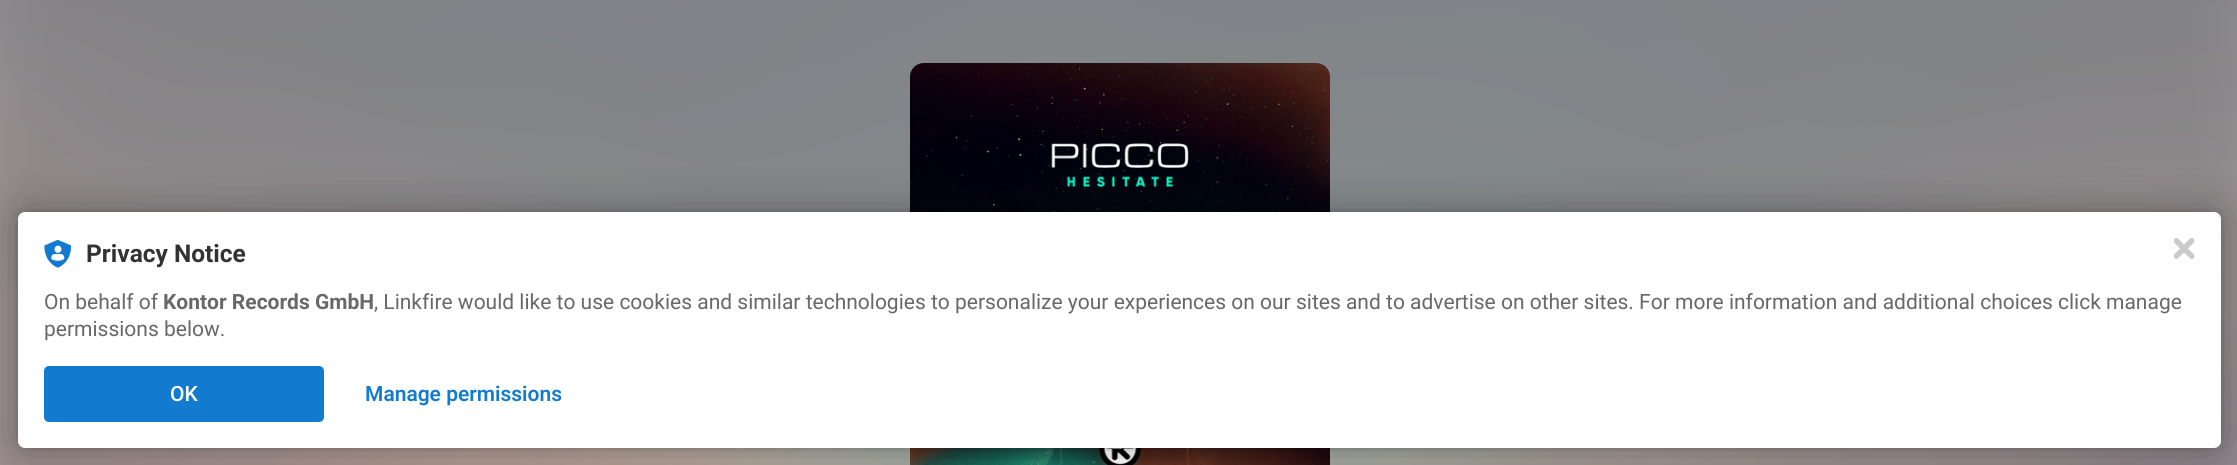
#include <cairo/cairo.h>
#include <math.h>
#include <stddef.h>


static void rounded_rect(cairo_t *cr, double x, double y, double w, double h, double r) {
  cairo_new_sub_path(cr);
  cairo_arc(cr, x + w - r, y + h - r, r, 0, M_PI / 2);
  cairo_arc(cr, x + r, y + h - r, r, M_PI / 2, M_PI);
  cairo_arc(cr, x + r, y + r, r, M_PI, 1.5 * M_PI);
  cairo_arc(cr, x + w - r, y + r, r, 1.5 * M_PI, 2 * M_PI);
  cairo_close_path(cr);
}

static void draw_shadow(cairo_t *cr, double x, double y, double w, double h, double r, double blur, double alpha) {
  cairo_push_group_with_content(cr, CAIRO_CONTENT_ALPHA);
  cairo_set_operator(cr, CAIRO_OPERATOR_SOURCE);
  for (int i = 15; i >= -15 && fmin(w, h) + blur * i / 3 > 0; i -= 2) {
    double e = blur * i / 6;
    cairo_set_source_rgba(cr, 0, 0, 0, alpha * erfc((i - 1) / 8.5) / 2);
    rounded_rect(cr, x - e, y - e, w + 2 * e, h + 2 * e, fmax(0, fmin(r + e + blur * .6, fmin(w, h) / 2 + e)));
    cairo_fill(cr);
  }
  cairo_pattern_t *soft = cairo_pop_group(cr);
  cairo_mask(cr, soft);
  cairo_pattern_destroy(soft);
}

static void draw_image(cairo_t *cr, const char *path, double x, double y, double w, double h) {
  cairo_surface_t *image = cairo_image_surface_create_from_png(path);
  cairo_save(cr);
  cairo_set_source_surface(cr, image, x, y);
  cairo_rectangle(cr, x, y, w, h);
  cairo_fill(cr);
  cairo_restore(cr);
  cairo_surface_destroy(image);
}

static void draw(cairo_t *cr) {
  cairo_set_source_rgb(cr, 1, 1, 1);
  cairo_paint(cr);
  draw_image(cr, "images/1.png", 0, 0, 2237, 465);
  draw_image(cr, "images/2.png", 910, 63, 420, 402);
  cairo_set_source_rgb(cr, 0, 0, 0);
  draw_shadow(cr, 18, 212, 2203, 236, 7, 3.5, 0.12);
  draw_shadow(cr, 18, 212, 2203, 236, 7, 21, 0.3);
  cairo_set_source_rgb(cr, 1, 1, 1);
  rounded_rect(cr, 18, 212, 2203, 236, 7);
  cairo_fill(cr);
  draw_image(cr, "images/3.png", 44, 240, 28, 28);
  cairo_set_source_rgb(cr, 19 / 255.0, 123 / 255.0, 207 / 255.0);
  rounded_rect(cr, 44, 366, 280, 56, 5);
  cairo_fill(cr);
  draw_image(cr, "images/4.png", 2174, 238, 21, 21);
  cairo_select_font_face(cr, "Roboto", CAIRO_FONT_SLANT_NORMAL, CAIRO_FONT_WEIGHT_BOLD);
  cairo_set_font_size(cr, 24.5);
  cairo_set_source_rgb(cr, 50 / 255.0, 50 / 255.0, 50 / 255.0);
  cairo_move_to(cr, 86, 262);
  cairo_show_text(cr, "Privacy Notice");
  cairo_select_font_face(cr, "Roboto", CAIRO_FONT_SLANT_NORMAL, CAIRO_FONT_WEIGHT_NORMAL);
  cairo_set_font_size(cr, 21);
  cairo_set_source_rgb(cr, 104 / 255.0, 104 / 255.0, 104 / 255.0);
  cairo_move_to(cr, 44, 309);
  cairo_show_text(cr, "On behalf of");
  cairo_select_font_face(cr, "Roboto", CAIRO_FONT_SLANT_NORMAL, CAIRO_FONT_WEIGHT_BOLD);
  cairo_move_to(cr, 163, 309);
  cairo_show_text(cr, "Kontor Records GmbH");
  cairo_select_font_face(cr, "Roboto", CAIRO_FONT_SLANT_NORMAL, CAIRO_FONT_WEIGHT_NORMAL);
  cairo_move_to(cr, 374, 309);
  cairo_show_text(cr, ", Linkfire would like to use cookies and similar technologies to personalize your experiences on our sites and to advertise on other sites. For more information and additional choices click manage");
  cairo_move_to(cr, 44, 336);
  cairo_show_text(cr, "permissions below.");
  cairo_select_font_face(cr, "Roboto Medium", CAIRO_FONT_SLANT_NORMAL, CAIRO_FONT_WEIGHT_NORMAL);
  cairo_set_source_rgb(cr, 1, 1, 1);
  cairo_move_to(cr, 170, 401);
  cairo_show_text(cr, "OK");
  cairo_select_font_face(cr, "Roboto SemiBold", CAIRO_FONT_SLANT_NORMAL, CAIRO_FONT_WEIGHT_NORMAL);
  cairo_set_source_rgb(cr, 19 / 255.0, 123 / 255.0, 207 / 255.0);
  cairo_move_to(cr, 365, 401);
  cairo_show_text(cr, "Manage permissions");
}

int main(void) {
  cairo_surface_t *surface = cairo_image_surface_create(CAIRO_FORMAT_RGB24, 2237, 465);
  cairo_t *cr = cairo_create(surface);
  cairo_font_options_t *options = cairo_font_options_create();
  cairo_font_options_set_hint_metrics(options, CAIRO_HINT_METRICS_OFF);
  cairo_font_options_set_hint_style(options, CAIRO_HINT_STYLE_NONE);
  cairo_set_font_options(cr, options);
  cairo_set_miter_limit(cr, 4);
  draw(cr);
  cairo_surface_write_to_png(surface, "out.png");
  cairo_font_options_destroy(options);
  cairo_destroy(cr);
  cairo_surface_destroy(surface);
  return 0;
}
